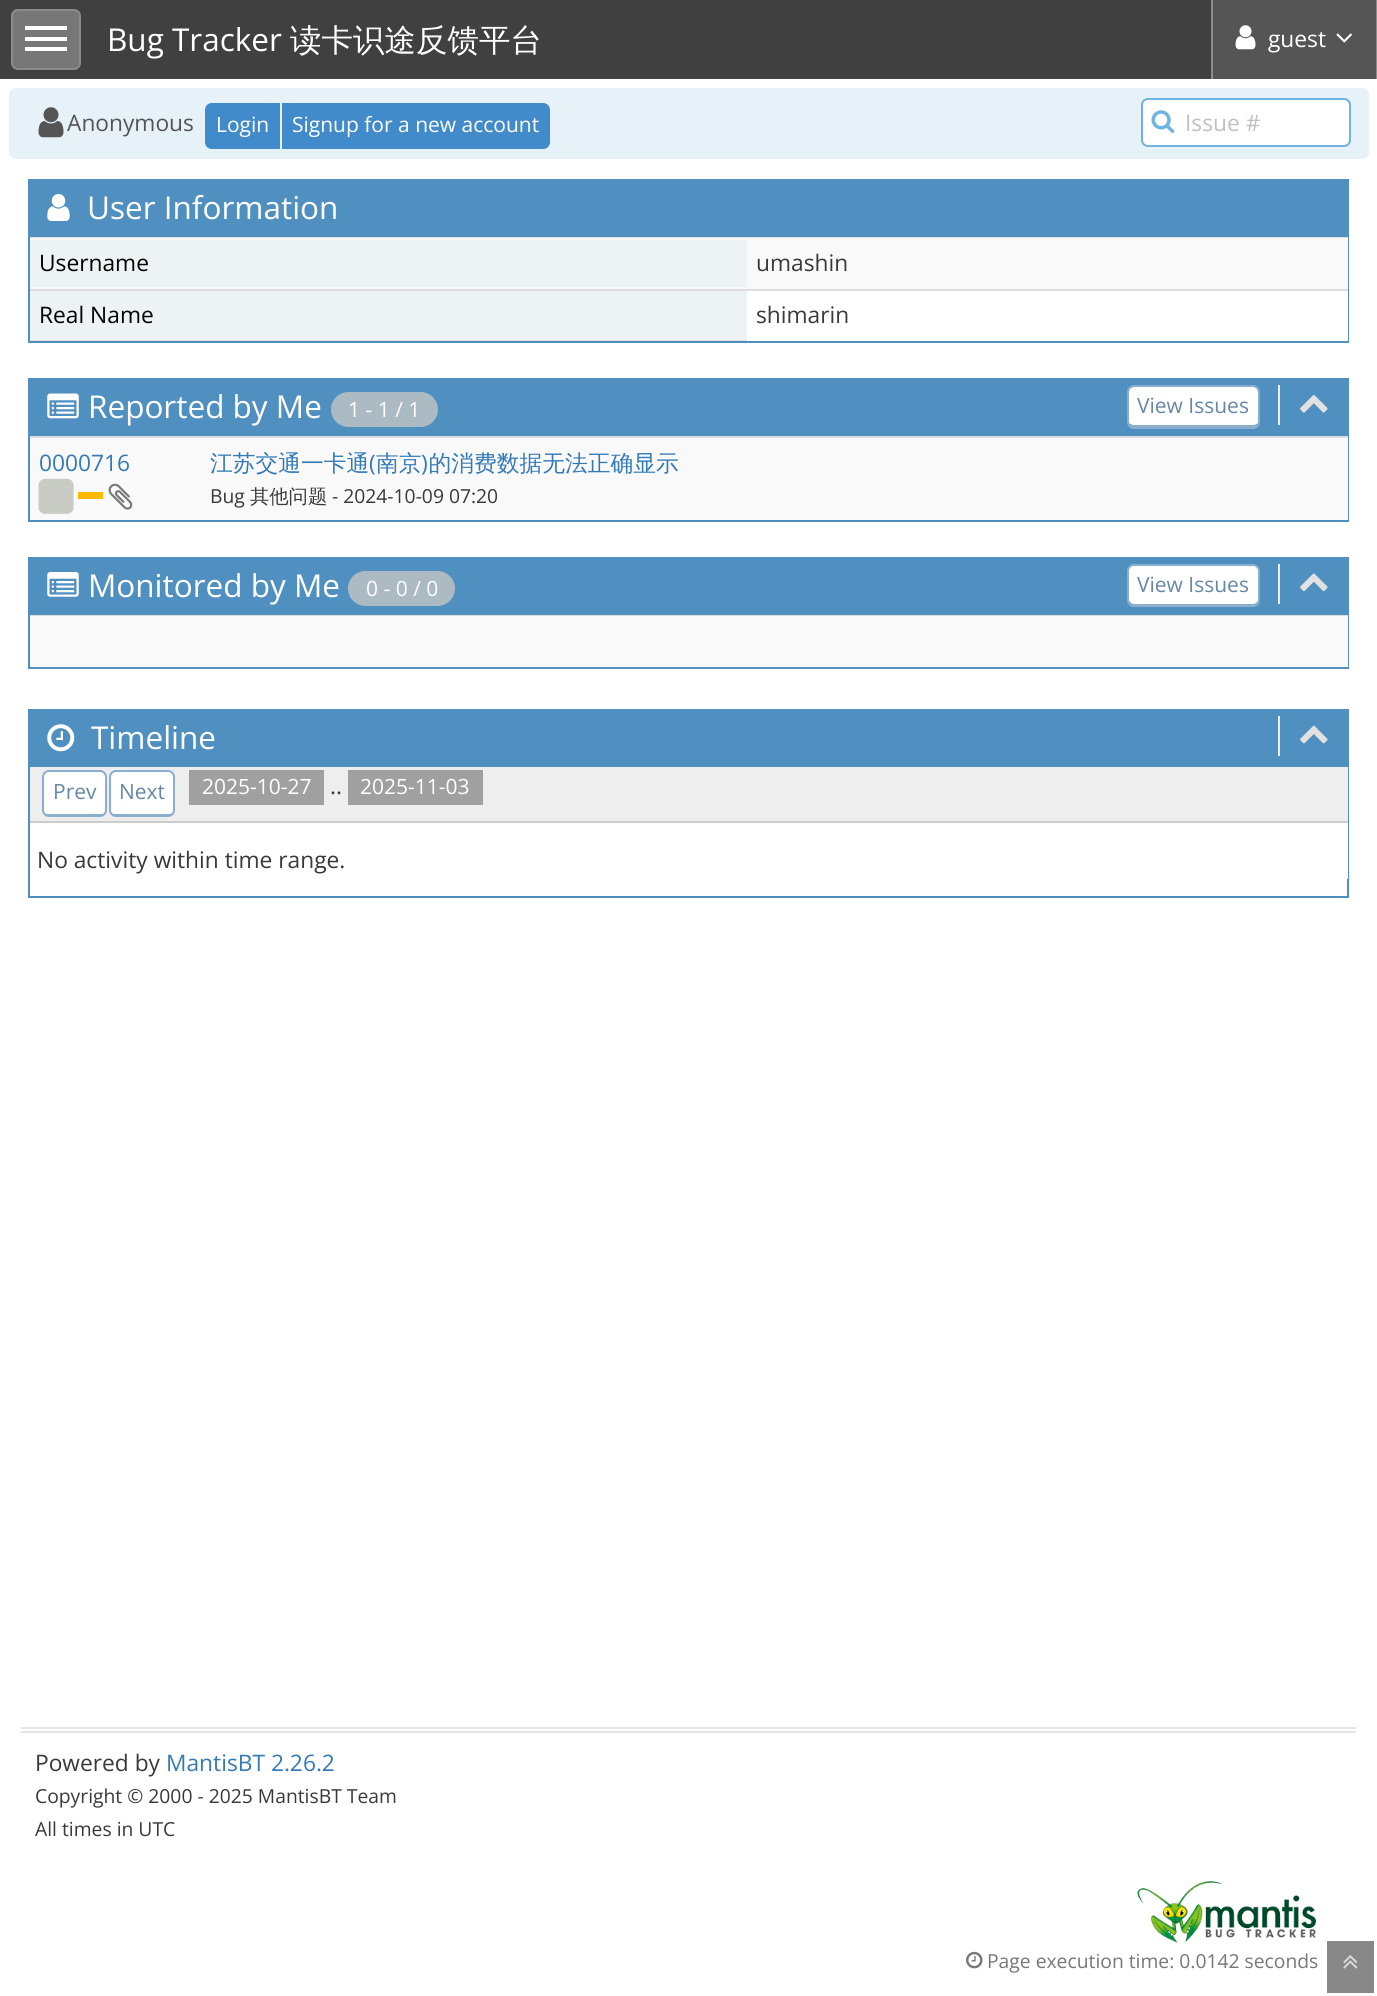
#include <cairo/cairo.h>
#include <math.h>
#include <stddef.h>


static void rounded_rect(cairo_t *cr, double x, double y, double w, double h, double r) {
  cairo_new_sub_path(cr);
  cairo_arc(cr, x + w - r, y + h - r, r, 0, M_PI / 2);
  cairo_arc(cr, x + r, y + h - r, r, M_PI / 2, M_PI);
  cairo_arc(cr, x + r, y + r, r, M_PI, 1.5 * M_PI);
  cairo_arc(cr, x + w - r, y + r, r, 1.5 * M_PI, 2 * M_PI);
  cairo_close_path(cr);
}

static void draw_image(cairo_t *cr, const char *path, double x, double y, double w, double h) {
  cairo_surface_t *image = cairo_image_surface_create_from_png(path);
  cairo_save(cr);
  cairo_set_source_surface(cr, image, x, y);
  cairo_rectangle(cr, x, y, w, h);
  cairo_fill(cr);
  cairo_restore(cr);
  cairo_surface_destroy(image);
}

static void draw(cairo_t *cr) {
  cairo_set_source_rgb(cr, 1, 1, 1);
  cairo_paint(cr);
  cairo_set_source_rgb(cr, 64 / 255.0, 64 / 255.0, 64 / 255.0);
  cairo_rectangle(cr, 0, 0, 1211, 79);
  cairo_fill(cr);
  cairo_set_source_rgb(cr, 119 / 255.0, 119 / 255.0, 119 / 255.0);
  rounded_rect(cr, 11, 9, 70, 61, 7);
  cairo_fill(cr);
  rounded_rect(cr, 12, 10, 68, 59, 6);
  cairo_set_source_rgba(cr, 1, 1, 1, 0.15);
  cairo_stroke(cr);
  cairo_set_source_rgb(cr, 1, 1, 1);
  cairo_rectangle(cr, 25, 26, 42, 4);
  cairo_fill(cr);
  cairo_rectangle(cr, 25, 37, 42, 4);
  cairo_fill(cr);
  cairo_rectangle(cr, 25, 47, 42, 4);
  cairo_fill(cr);
  cairo_set_source_rgb(cr, 140 / 255.0, 140 / 255.0, 140 / 255.0);
  cairo_rectangle(cr, 1376, 0, 1, 79);
  cairo_fill(cr);
  cairo_rectangle(cr, 1211, 0, 2, 79);
  cairo_fill(cr);
  cairo_set_source_rgb(cr, 85 / 255.0, 85 / 255.0, 85 / 255.0);
  cairo_rectangle(cr, 1213, 0, 163, 79);
  cairo_fill(cr);
  draw_image(cr, "images/1.png", 1235, 25, 21, 25);
  draw_image(cr, "images/2.png", 1336, 33, 16, 10);
  cairo_set_source_rgb(cr, 231 / 255.0, 242 / 255.0, 248 / 255.0);
  rounded_rect(cr, 9, 88, 1360, 71, 7);
  cairo_fill(cr);
  draw_image(cr, "images/3.png", 38, 107, 26, 31);
  cairo_set_source_rgb(cr, 66 / 255.0, 139 / 255.0, 202 / 255.0);
  cairo_new_path(cr);
  cairo_move_to(cr, 212, 104);
  cairo_line_to(cr, 279, 104);
  cairo_line_to(cr, 279, 148);
  cairo_line_to(cr, 212, 148);
  cairo_curve_to(cr, 208.5, 148, 206, 145.5, 206, 142);
  cairo_line_to(cr, 206, 110);
  cairo_curve_to(cr, 206, 106.5, 208.5, 104, 212, 104);
  cairo_close_path(cr);
  cairo_fill_preserve(cr);
  cairo_stroke(cr);
  cairo_new_path(cr);
  cairo_move_to(cr, 283, 104);
  cairo_line_to(cr, 543, 104);
  cairo_curve_to(cr, 546.5, 104, 549, 106.5, 549, 110);
  cairo_line_to(cr, 549, 142);
  cairo_curve_to(cr, 549, 145.5, 546.5, 148, 543, 148);
  cairo_line_to(cr, 283, 148);
  cairo_close_path(cr);
  cairo_fill_preserve(cr);
  cairo_stroke(cr);
  cairo_set_source_rgb(cr, 1, 1, 1);
  rounded_rect(cr, 1142, 99, 208, 47, 6);
  cairo_fill_preserve(cr);
  cairo_set_source_rgb(cr, 111 / 255.0, 179 / 255.0, 224 / 255.0);
  cairo_stroke(cr);
  draw_image(cr, "images/4.png", 1151, 110, 24, 23);
  cairo_rectangle(cr, 29, 180, 1319, 162);
  cairo_set_source_rgb(cr, 80 / 255.0, 144 / 255.0, 193 / 255.0);
  cairo_stroke(cr);
  cairo_rectangle(cr, 30, 181, 1317, 54);
  cairo_fill(cr);
  cairo_rectangle(cr, 30, 235, 1318, 2);
  cairo_fill(cr);
  draw_image(cr, "images/5.png", 47, 194, 23, 27);
  cairo_set_source_rgb(cr, 1, 1, 1);
  cairo_rectangle(cr, 1347, 291, 1, 50);
  cairo_fill(cr);
  cairo_set_source_rgb(cr, 249 / 255.0, 249 / 255.0, 249 / 255.0);
  cairo_rectangle(cr, 30, 238, 1318, 51);
  cairo_fill(cr);
  cairo_set_source_rgb(cr, 237 / 255.0, 243 / 255.0, 244 / 255.0);
  cairo_rectangle(cr, 30, 240, 717, 47);
  cairo_fill(cr);
  cairo_set_source_rgb(cr, 221 / 255.0, 221 / 255.0, 221 / 255.0);
  cairo_rectangle(cr, 30, 237, 1318, 1);
  cairo_fill(cr);
  cairo_set_source_rgb(cr, 237 / 255.0, 243 / 255.0, 244 / 255.0);
  cairo_rectangle(cr, 30, 291, 717, 49);
  cairo_fill(cr);
  cairo_set_source_rgb(cr, 221 / 255.0, 221 / 255.0, 221 / 255.0);
  cairo_rectangle(cr, 30, 340, 717, 1);
  cairo_fill(cr);
  cairo_rectangle(cr, 30, 289, 1318, 2);
  cairo_fill(cr);
  cairo_rectangle(cr, 29, 379, 1319, 142);
  cairo_set_source_rgb(cr, 80 / 255.0, 144 / 255.0, 193 / 255.0);
  cairo_stroke(cr);
  cairo_rectangle(cr, 30, 380, 1317, 56);
  cairo_fill(cr);
  draw_image(cr, "images/6.png", 47, 393, 32, 26);
  cairo_set_source_rgb(cr, 171 / 255.0, 186 / 255.0, 195 / 255.0);
  rounded_rect(cr, 331, 392, 107, 35, 17.5);
  cairo_fill(cr);
  cairo_set_source_rgb(cr, 1, 1, 1);
  cairo_new_path(cr);
  cairo_move_to(cr, 1134, 387);
  cairo_line_to(cr, 1253, 387);
  cairo_curve_to(cr, 1256, 387, 1258, 389, 1258, 392);
  cairo_line_to(cr, 1258, 422);
  cairo_curve_to(cr, 1258, 424, 1256, 425, 1253, 425);
  cairo_line_to(cr, 1134, 425);
  cairo_curve_to(cr, 1131, 425, 1129, 424, 1129, 422);
  cairo_line_to(cr, 1129, 392);
  cairo_curve_to(cr, 1129, 389, 1131, 387, 1134, 387);
  cairo_close_path(cr);
  cairo_fill(cr);
  rounded_rect(cr, 1128, 386, 131, 42, 6);
  cairo_set_source_rgb(cr, 138 / 255.0, 175 / 255.0, 206 / 255.0);
  cairo_stroke(cr);
  cairo_rectangle(cr, 1131, 425, 126, 2);
  cairo_fill(cr);
  cairo_set_source_rgb(cr, 238 / 255.0, 238 / 255.0, 238 / 255.0);
  cairo_rectangle(cr, 1278, 385, 2, 40);
  cairo_fill(cr);
  draw_image(cr, "images/7.png", 1300, 395, 28, 18);
  cairo_set_source_rgb(cr, 249 / 255.0, 249 / 255.0, 249 / 255.0);
  cairo_rectangle(cr, 30, 438, 1318, 82);
  cairo_fill(cr);
  draw_image(cr, "images/8.png", 38, 478, 36, 36);
  cairo_set_source_rgb(cr, 254 / 255.0, 185 / 255.0, 2 / 255.0);
  cairo_rectangle(cr, 78, 492, 25, 7);
  cairo_fill(cr);
  draw_image(cr, "images/9.png", 108, 483, 25, 27);
  cairo_set_source_rgb(cr, 221 / 255.0, 221 / 255.0, 221 / 255.0);
  cairo_rectangle(cr, 30, 436, 1318, 2);
  cairo_fill(cr);
  cairo_rectangle(cr, 29, 558, 1319, 110);
  cairo_set_source_rgb(cr, 80 / 255.0, 144 / 255.0, 193 / 255.0);
  cairo_stroke(cr);
  cairo_rectangle(cr, 30, 559, 1317, 54);
  cairo_fill(cr);
  cairo_rectangle(cr, 30, 613, 1318, 2);
  cairo_fill(cr);
  draw_image(cr, "images/10.png", 47, 572, 32, 25);
  cairo_set_source_rgb(cr, 171 / 255.0, 186 / 255.0, 195 / 255.0);
  rounded_rect(cr, 348, 571, 107, 35, 17.5);
  cairo_fill(cr);
  cairo_set_source_rgb(cr, 1, 1, 1);
  cairo_new_path(cr);
  cairo_move_to(cr, 1134, 565);
  cairo_line_to(cr, 1253, 565);
  cairo_curve_to(cr, 1256, 565, 1258, 568, 1258, 570);
  cairo_line_to(cr, 1258, 600);
  cairo_curve_to(cr, 1258, 602, 1256, 604, 1253, 604);
  cairo_line_to(cr, 1134, 604);
  cairo_curve_to(cr, 1131, 604, 1129, 602, 1129, 600);
  cairo_line_to(cr, 1129, 570);
  cairo_curve_to(cr, 1129, 568, 1131, 565, 1134, 565);
  cairo_close_path(cr);
  cairo_fill(cr);
  rounded_rect(cr, 1128, 565, 131, 41, 6);
  cairo_set_source_rgb(cr, 138 / 255.0, 175 / 255.0, 206 / 255.0);
  cairo_stroke(cr);
  cairo_rectangle(cr, 1131, 604, 126, 2);
  cairo_fill(cr);
  cairo_set_source_rgb(cr, 238 / 255.0, 238 / 255.0, 238 / 255.0);
  cairo_rectangle(cr, 1278, 564, 2, 40);
  cairo_fill(cr);
  draw_image(cr, "images/11.png", 1300, 573, 28, 19);
  cairo_set_source_rgb(cr, 249 / 255.0, 249 / 255.0, 249 / 255.0);
  cairo_rectangle(cr, 30, 616, 1318, 51);
  cairo_fill(cr);
  cairo_set_source_rgb(cr, 221 / 255.0, 221 / 255.0, 221 / 255.0);
  cairo_rectangle(cr, 30, 615, 1318, 1);
  cairo_fill(cr);
  cairo_rectangle(cr, 29, 710, 1319, 187);
  cairo_set_source_rgb(cr, 80 / 255.0, 144 / 255.0, 193 / 255.0);
  cairo_stroke(cr);
  cairo_rectangle(cr, 30, 711, 1317, 56);
  cairo_fill(cr);
  draw_image(cr, "images/12.png", 47, 724, 28, 28);
  cairo_set_source_rgb(cr, 238 / 255.0, 238 / 255.0, 238 / 255.0);
  cairo_rectangle(cr, 1278, 716, 2, 40);
  cairo_fill(cr);
  draw_image(cr, "images/13.png", 1300, 725, 28, 19);
  cairo_set_source_rgb(cr, 1, 1, 1);
  cairo_rectangle(cr, 1347, 823, 1, 56);
  cairo_fill(cr);
  cairo_set_source_rgb(cr, 238 / 255.0, 238 / 255.0, 238 / 255.0);
  cairo_rectangle(cr, 30, 767, 1318, 54);
  cairo_fill(cr);
  cairo_set_source_rgb(cr, 204 / 255.0, 204 / 255.0, 204 / 255.0);
  cairo_rectangle(cr, 30, 821, 1318, 2);
  cairo_fill(cr);
  cairo_set_source_rgb(cr, 1, 1, 1);
  cairo_new_path(cr);
  cairo_move_to(cr, 49, 772);
  cairo_line_to(cr, 100, 772);
  cairo_curve_to(cr, 103, 772, 105, 774, 105, 777);
  cairo_line_to(cr, 105, 810);
  cairo_curve_to(cr, 105, 812, 103, 814, 100, 814);
  cairo_line_to(cr, 49, 814);
  cairo_curve_to(cr, 46, 814, 44, 812, 44, 810);
  cairo_line_to(cr, 44, 777);
  cairo_curve_to(cr, 44, 774, 46, 772, 49, 772);
  cairo_close_path(cr);
  cairo_fill(cr);
  rounded_rect(cr, 43, 771, 63, 45, 6);
  cairo_set_source_rgb(cr, 138 / 255.0, 175 / 255.0, 206 / 255.0);
  cairo_stroke(cr);
  cairo_rectangle(cr, 46, 814, 57, 1);
  cairo_fill(cr);
  cairo_set_source_rgb(cr, 1, 1, 1);
  cairo_new_path(cr);
  cairo_move_to(cr, 116, 772);
  cairo_line_to(cr, 168, 772);
  cairo_curve_to(cr, 171, 772, 173, 774, 173, 777);
  cairo_line_to(cr, 173, 810);
  cairo_curve_to(cr, 173, 812, 171, 814, 168, 814);
  cairo_line_to(cr, 116, 814);
  cairo_curve_to(cr, 113, 814, 110, 812, 110, 810);
  cairo_line_to(cr, 110, 777);
  cairo_curve_to(cr, 110, 774, 113, 772, 116, 772);
  cairo_close_path(cr);
  cairo_fill(cr);
  rounded_rect(cr, 110, 771, 64, 45, 6);
  cairo_set_source_rgb(cr, 138 / 255.0, 175 / 255.0, 206 / 255.0);
  cairo_stroke(cr);
  cairo_rectangle(cr, 112, 814, 60, 2);
  cairo_fill(cr);
  cairo_set_source_rgb(cr, 160 / 255.0, 160 / 255.0, 160 / 255.0);
  cairo_rectangle(cr, 189, 770, 135, 35);
  cairo_fill(cr);
  cairo_rectangle(cr, 348, 770, 135, 35);
  cairo_fill(cr);
  cairo_set_source_rgb(cr, 229 / 255.0, 229 / 255.0, 229 / 255.0);
  cairo_rectangle(cr, 21, 1727, 1335, 2);
  cairo_fill(cr);
  cairo_rectangle(cr, 21, 1731, 1335, 2);
  cairo_fill(cr);
  draw_image(cr, "images/14.png", 1137, 1881, 179, 62);
  draw_image(cr, "images/15.png", 966, 1951, 17, 18);
  cairo_set_source_rgb(cr, 136 / 255.0, 136 / 255.0, 136 / 255.0);
  cairo_rectangle(cr, 1327, 1941, 47, 52);
  cairo_fill(cr);
  draw_image(cr, "images/16.png", 1343, 1955, 15, 14);
  cairo_select_font_face(cr, "Open Sans", CAIRO_FONT_SLANT_NORMAL, CAIRO_FONT_WEIGHT_NORMAL);
  cairo_set_font_size(cr, 31.5);
  cairo_set_source_rgb(cr, 1, 1, 1);
  cairo_move_to(cr, 107, 51);
  cairo_show_text(cr, "Bug Tracker");
  cairo_select_font_face(cr, "WenQuanYi Zen Hei Medium", CAIRO_FONT_SLANT_NORMAL, CAIRO_FONT_WEIGHT_NORMAL);
  cairo_move_to(cr, 290, 51);
  cairo_show_text(cr, "读卡识途反馈平台");
  cairo_select_font_face(cr, "Open Sans", CAIRO_FONT_SLANT_NORMAL, CAIRO_FONT_WEIGHT_NORMAL);
  cairo_set_font_size(cr, 22.75);
  cairo_move_to(cr, 1268, 47);
  cairo_show_text(cr, "guest");
  cairo_set_source_rgb(cr, 85 / 255.0, 85 / 255.0, 85 / 255.0);
  cairo_move_to(cr, 67, 131);
  cairo_show_text(cr, "Anonymous");
  cairo_set_font_size(cr, 21);
  cairo_set_source_rgb(cr, 1, 1, 1);
  cairo_move_to(cr, 216, 132);
  cairo_show_text(cr, "Login");
  cairo_move_to(cr, 292, 132);
  cairo_show_text(cr, "Signup for a new account");
  cairo_set_font_size(cr, 22.75);
  cairo_set_source_rgb(cr, 192 / 255.0, 192 / 255.0, 192 / 255.0);
  cairo_move_to(cr, 1185, 131);
  cairo_show_text(cr, "Issue #");
  cairo_set_font_size(cr, 31.5);
  cairo_set_source_rgb(cr, 1, 1, 1);
  cairo_move_to(cr, 87, 219);
  cairo_show_text(cr, "User Information");
  cairo_set_font_size(cr, 22.75);
  cairo_set_source_rgb(cr, 0, 0, 0);
  cairo_move_to(cr, 39, 271);
  cairo_show_text(cr, "Username");
  cairo_set_source_rgb(cr, 57 / 255.0, 57 / 255.0, 57 / 255.0);
  cairo_move_to(cr, 756, 271);
  cairo_show_text(cr, "umashin");
  cairo_set_source_rgb(cr, 0, 0, 0);
  cairo_move_to(cr, 39, 323);
  cairo_show_text(cr, "Real Name");
  cairo_set_source_rgb(cr, 57 / 255.0, 57 / 255.0, 57 / 255.0);
  cairo_move_to(cr, 756, 323);
  cairo_show_text(cr, "shimarin");
  cairo_set_font_size(cr, 31.5);
  cairo_set_source_rgb(cr, 1, 1, 1);
  cairo_move_to(cr, 88, 418);
  cairo_show_text(cr, "Reported by Me");
  cairo_set_font_size(cr, 21);
  cairo_move_to(cr, 348, 417);
  cairo_show_text(cr, "1 - 1 / 1");
  cairo_set_source_rgb(cr, 102 / 255.0, 136 / 255.0, 166 / 255.0);
  cairo_move_to(cr, 1137, 413);
  cairo_show_text(cr, "View Issues");
  cairo_set_font_size(cr, 22.75);
  cairo_set_source_rgb(cr, 51 / 255.0, 122 / 255.0, 183 / 255.0);
  cairo_move_to(cr, 39, 471);
  cairo_show_text(cr, "0000716");
  cairo_select_font_face(cr, "WenQuanYi Zen Hei Medium", CAIRO_FONT_SLANT_NORMAL, CAIRO_FONT_WEIGHT_NORMAL);
  cairo_move_to(cr, 210, 471);
  cairo_show_text(cr, "江苏交通一卡通 南京 的消费数据无法正确显示");
  cairo_select_font_face(cr, "Open Sans", CAIRO_FONT_SLANT_NORMAL, CAIRO_FONT_WEIGHT_NORMAL);
  cairo_move_to(cr, 369, 471);
  cairo_show_text(cr, "(");
  cairo_move_to(cr, 421, 471);
  cairo_show_text(cr, ")");
  cairo_set_font_size(cr, 19.3);
  cairo_set_source_rgb(cr, 57 / 255.0, 57 / 255.0, 57 / 255.0);
  cairo_move_to(cr, 210, 503);
  cairo_show_text(cr, "Bug");
  cairo_select_font_face(cr, "WenQuanYi Zen Hei Medium", CAIRO_FONT_SLANT_NORMAL, CAIRO_FONT_WEIGHT_NORMAL);
  cairo_move_to(cr, 250, 503);
  cairo_show_text(cr, "其他问题");
  cairo_select_font_face(cr, "Open Sans", CAIRO_FONT_SLANT_NORMAL, CAIRO_FONT_WEIGHT_NORMAL);
  cairo_move_to(cr, 332, 503);
  cairo_show_text(cr, "- 2024-10-09 07:20");
  cairo_set_font_size(cr, 31.5);
  cairo_set_source_rgb(cr, 1, 1, 1);
  cairo_move_to(cr, 88, 597);
  cairo_show_text(cr, "Monitored by Me");
  cairo_set_font_size(cr, 21);
  cairo_move_to(cr, 366, 596);
  cairo_show_text(cr, "0 - 0 / 0");
  cairo_set_source_rgb(cr, 102 / 255.0, 136 / 255.0, 166 / 255.0);
  cairo_move_to(cr, 1137, 592);
  cairo_show_text(cr, "View Issues");
  cairo_set_font_size(cr, 31.5);
  cairo_set_source_rgb(cr, 1, 1, 1);
  cairo_move_to(cr, 91, 749);
  cairo_show_text(cr, "Timeline");
  cairo_set_font_size(cr, 21);
  cairo_set_source_rgb(cr, 102 / 255.0, 136 / 255.0, 166 / 255.0);
  cairo_move_to(cr, 53, 799);
  cairo_show_text(cr, "Prev");
  cairo_move_to(cr, 119, 799);
  cairo_show_text(cr, "Next");
  cairo_set_source_rgb(cr, 1, 1, 1);
  cairo_move_to(cr, 202, 794);
  cairo_show_text(cr, "2025-10-27");
  cairo_set_font_size(cr, 22.75);
  cairo_set_source_rgb(cr, 57 / 255.0, 57 / 255.0, 57 / 255.0);
  cairo_move_to(cr, 330, 794);
  cairo_show_text(cr, "..");
  cairo_set_font_size(cr, 21);
  cairo_set_source_rgb(cr, 1, 1, 1);
  cairo_move_to(cr, 360, 794);
  cairo_show_text(cr, "2025-11-03");
  cairo_set_font_size(cr, 22.75);
  cairo_set_source_rgb(cr, 57 / 255.0, 57 / 255.0, 57 / 255.0);
  cairo_move_to(cr, 37, 868);
  cairo_show_text(cr, "No activity within time range.");
  cairo_move_to(cr, 35, 1771);
  cairo_show_text(cr, "Powered by");
  cairo_set_source_rgb(cr, 51 / 255.0, 122 / 255.0, 183 / 255.0);
  cairo_move_to(cr, 166, 1771);
  cairo_show_text(cr, "MantisBT 2.26.2");
  cairo_set_font_size(cr, 19.3);
  cairo_set_source_rgb(cr, 57 / 255.0, 57 / 255.0, 57 / 255.0);
  cairo_move_to(cr, 35, 1803);
  cairo_show_text(cr, "Copyright © 2000 - 2025 MantisBT Team");
  cairo_move_to(cr, 35, 1836);
  cairo_show_text(cr, "All times in UTC");
  cairo_set_source_rgb(cr, 119 / 255.0, 119 / 255.0, 119 / 255.0);
  cairo_move_to(cr, 987, 1968);
  cairo_show_text(cr, "Page execution time: 0.0142 seconds");
}

int main(void) {
  cairo_surface_t *surface = cairo_image_surface_create(CAIRO_FORMAT_RGB24, 1377, 1996);
  cairo_t *cr = cairo_create(surface);
  cairo_font_options_t *options = cairo_font_options_create();
  cairo_font_options_set_hint_metrics(options, CAIRO_HINT_METRICS_OFF);
  cairo_font_options_set_hint_style(options, CAIRO_HINT_STYLE_NONE);
  cairo_set_font_options(cr, options);
  cairo_set_miter_limit(cr, 4);
  draw(cr);
  cairo_surface_write_to_png(surface, "out.png");
  cairo_font_options_destroy(options);
  cairo_destroy(cr);
  cairo_surface_destroy(surface);
  return 0;
}
